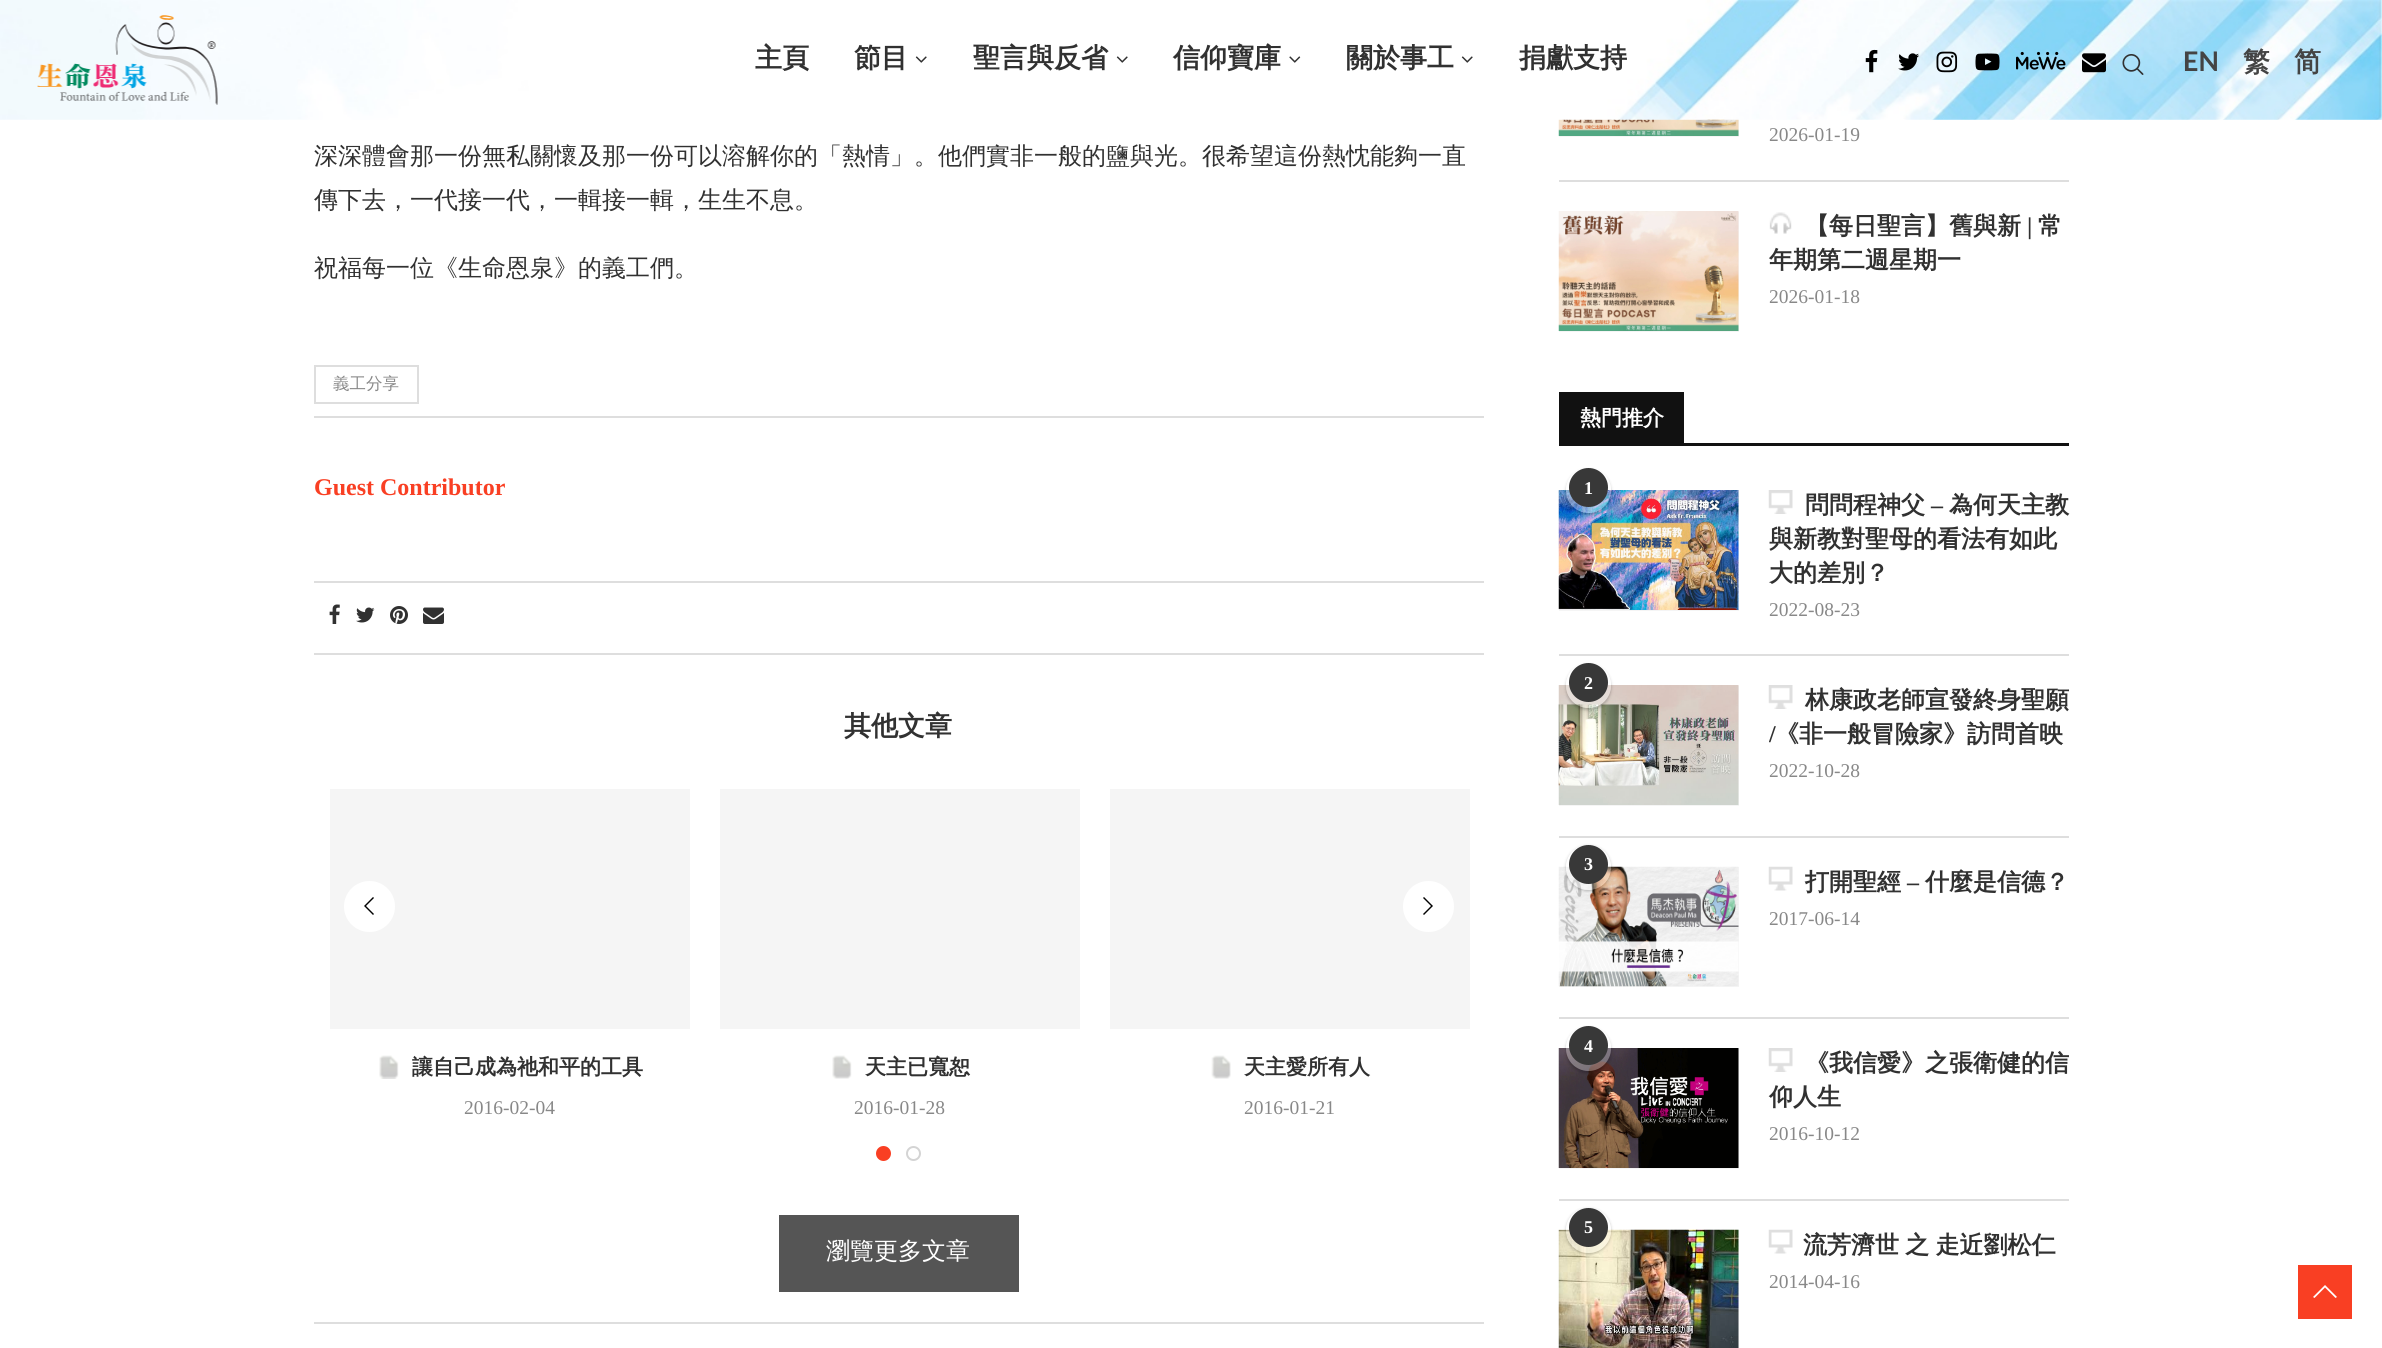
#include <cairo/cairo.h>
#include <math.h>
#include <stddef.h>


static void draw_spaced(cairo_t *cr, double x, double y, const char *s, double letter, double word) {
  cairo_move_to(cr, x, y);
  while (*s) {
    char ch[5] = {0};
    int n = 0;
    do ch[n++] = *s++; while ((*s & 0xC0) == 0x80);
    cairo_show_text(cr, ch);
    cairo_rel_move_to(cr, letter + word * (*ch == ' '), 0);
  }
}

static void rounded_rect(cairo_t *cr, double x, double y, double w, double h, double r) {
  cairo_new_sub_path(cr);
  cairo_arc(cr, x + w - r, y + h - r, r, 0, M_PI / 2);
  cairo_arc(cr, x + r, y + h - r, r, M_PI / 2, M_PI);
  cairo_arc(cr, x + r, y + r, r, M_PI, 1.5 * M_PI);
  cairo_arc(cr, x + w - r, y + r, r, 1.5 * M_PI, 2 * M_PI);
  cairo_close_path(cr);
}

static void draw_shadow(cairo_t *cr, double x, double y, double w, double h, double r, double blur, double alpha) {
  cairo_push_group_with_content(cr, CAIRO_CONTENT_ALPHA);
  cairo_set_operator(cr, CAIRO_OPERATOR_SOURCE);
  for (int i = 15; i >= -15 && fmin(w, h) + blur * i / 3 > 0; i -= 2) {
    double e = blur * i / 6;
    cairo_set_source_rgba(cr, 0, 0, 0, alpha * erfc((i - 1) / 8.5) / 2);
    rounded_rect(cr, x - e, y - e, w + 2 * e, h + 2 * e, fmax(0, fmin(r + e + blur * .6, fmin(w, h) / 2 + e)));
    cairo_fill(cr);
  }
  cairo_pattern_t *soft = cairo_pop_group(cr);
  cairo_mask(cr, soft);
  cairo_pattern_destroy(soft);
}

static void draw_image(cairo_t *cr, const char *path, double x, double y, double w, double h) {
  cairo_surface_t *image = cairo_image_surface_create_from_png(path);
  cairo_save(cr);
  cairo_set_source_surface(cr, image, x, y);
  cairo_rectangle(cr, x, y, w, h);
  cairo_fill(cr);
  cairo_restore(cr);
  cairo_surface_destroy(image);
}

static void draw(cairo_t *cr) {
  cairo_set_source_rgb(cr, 1, 1, 1);
  cairo_paint(cr);
  cairo_set_source_rgb(cr, 245 / 255.0, 245 / 255.0, 245 / 255.0);
  cairo_rectangle(cr, 1559, 119, 180, 18);
  cairo_fill(cr);
  draw_image(cr, "images/19.png", 1558, 119, 181, 17);
  draw_image(cr, "images/1.png", 0, 0, 2382, 120);
  draw_image(cr, "images/2.png", 37, 15, 181, 90);
  draw_image(cr, "images/3.png", 915, 56, 12, 7);
  draw_image(cr, "images/3.png", 1116, 56, 12, 7);
  draw_image(cr, "images/4.png", 1289, 56, 12, 7);
  draw_image(cr, "images/3.png", 1461, 56, 12, 7);
  draw_image(cr, "images/5.png", 1865, 49, 13, 24);
  draw_image(cr, "images/6.png", 1898, 53, 21, 18);
  draw_image(cr, "images/7.png", 1936, 51, 22, 22);
  draw_image(cr, "images/8.png", 1975, 53, 25, 18);
  draw_image(cr, "images/9.png", 2016, 51, 50, 19);
  draw_image(cr, "images/10.png", 2082, 53, 24, 20);
  draw_image(cr, "images/11.png", 2122, 54, 22, 21);
  cairo_rectangle(cr, 315, 366, 103, 37);
  cairo_set_source_rgb(cr, 222 / 255.0, 222 / 255.0, 222 / 255.0);
  cairo_stroke(cr);
  cairo_rectangle(cr, 314, 416, 1170, 2);
  cairo_fill(cr);
  cairo_rectangle(cr, 314, 581, 1170, 2);
  cairo_fill(cr);
  draw_image(cr, "images/12.png", 329, 604, 11, 20);
  draw_image(cr, "images/13.png", 356, 607, 19, 16);
  draw_image(cr, "images/14.png", 390, 606, 18, 18);
  draw_image(cr, "images/15.png", 423, 607, 21, 17);
  cairo_rectangle(cr, 314, 653, 1170, 2);
  cairo_fill(cr);
  cairo_set_source_rgb(cr, 245 / 255.0, 245 / 255.0, 245 / 255.0);
  cairo_rectangle(cr, 330, 789, 360, 240);
  cairo_fill(cr);
  cairo_set_source_rgb(cr, 1, 1, 1);
  cairo_arc(cr, 369.5, 906.5, 25.5, 0, 2 * M_PI);
  cairo_fill(cr);
  cairo_set_source_rgb(cr, 1 / 255.0, 1 / 255.0, 1 / 255.0);
  cairo_new_path(cr);
  cairo_move_to(cr, 374, 898);
  cairo_line_to(cr, 373, 897);
  cairo_line_to(cr, 364, 906);
  cairo_line_to(cr, 373, 915);
  cairo_line_to(cr, 374, 914);
  cairo_line_to(cr, 366, 906);
  cairo_close_path(cr);
  cairo_fill(cr);
  cairo_set_source_rgb(cr, 245 / 255.0, 245 / 255.0, 245 / 255.0);
  cairo_rectangle(cr, 1110, 789, 360, 240);
  cairo_fill(cr);
  cairo_set_source_rgb(cr, 1, 1, 1);
  cairo_arc(cr, 1428.5, 906.5, 25.5, 0, 2 * M_PI);
  cairo_fill(cr);
  cairo_set_source_rgb(cr, 1 / 255.0, 1 / 255.0, 1 / 255.0);
  cairo_new_path(cr);
  cairo_move_to(cr, 1424, 897);
  cairo_line_to(cr, 1423, 898);
  cairo_line_to(cr, 1431, 906);
  cairo_line_to(cr, 1423, 914);
  cairo_line_to(cr, 1424, 915);
  cairo_line_to(cr, 1433, 906);
  cairo_close_path(cr);
  cairo_fill(cr);
  draw_image(cr, "images/16.png", 379, 1055, 20, 24);
  cairo_set_source_rgb(cr, 245 / 255.0, 245 / 255.0, 245 / 255.0);
  cairo_rectangle(cr, 720, 789, 360, 240);
  cairo_fill(cr);
  draw_image(cr, "images/17.png", 832, 1055, 20, 24);
  draw_image(cr, "images/18.png", 1211, 1055, 20, 24);
  cairo_set_source_rgb(cr, 249 / 255.0, 63 / 255.0, 35 / 255.0);
  cairo_arc(cr, 883.5, 1153.5, 6.5, 0, 2 * M_PI);
  cairo_fill_preserve(cr);
  cairo_stroke(cr);
  cairo_arc(cr, 913.5, 1153.5, 6.5, 0, 2 * M_PI);
  cairo_set_source_rgb(cr, 212 / 255.0, 212 / 255.0, 212 / 255.0);
  cairo_stroke(cr);
  cairo_set_source_rgb(cr, 85 / 255.0, 85 / 255.0, 85 / 255.0);
  cairo_rectangle(cr, 779, 1215, 240, 77);
  cairo_fill(cr);
  cairo_set_source_rgb(cr, 222 / 255.0, 222 / 255.0, 222 / 255.0);
  cairo_rectangle(cr, 314, 1322, 1170, 2);
  cairo_fill(cr);
  cairo_rectangle(cr, 1559, 180, 510, 2);
  cairo_fill(cr);
  cairo_set_source_rgb(cr, 245 / 255.0, 245 / 255.0, 245 / 255.0);
  cairo_rectangle(cr, 1559, 212, 180, 120);
  cairo_fill(cr);
  draw_image(cr, "images/20.png", 1558, 211, 181, 120);
  draw_image(cr, "images/21.png", 1769, 212, 23, 22);
  cairo_set_source_rgb(cr, 17 / 255.0, 17 / 255.0, 17 / 255.0);
  cairo_rectangle(cr, 1559, 443, 510, 3);
  cairo_fill(cr);
  cairo_rectangle(cr, 1562, 394, 120, 49);
  cairo_fill(cr);
  cairo_rectangle(cr, 1559, 392, 124, 2);
  cairo_fill(cr);
  cairo_rectangle(cr, 1682, 392, 2, 54);
  cairo_fill(cr);
  cairo_rectangle(cr, 1559, 392, 3, 54);
  cairo_fill(cr);
  cairo_set_source_rgb(cr, 222 / 255.0, 222 / 255.0, 222 / 255.0);
  cairo_rectangle(cr, 1559, 654, 510, 2);
  cairo_fill(cr);
  cairo_set_source_rgb(cr, 245 / 255.0, 245 / 255.0, 245 / 255.0);
  cairo_rectangle(cr, 1559, 491, 180, 120);
  cairo_fill(cr);
  draw_image(cr, "images/22.png", 1558, 490, 181, 120);
  cairo_save(cr);
  cairo_set_fill_rule(cr, CAIRO_FILL_RULE_EVEN_ODD);
  cairo_new_path(cr);
  cairo_move_to(cr, 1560, 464);
  cairo_line_to(cr, 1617, 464);
  cairo_line_to(cr, 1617, 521);
  cairo_line_to(cr, 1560, 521);
  cairo_close_path(cr);
  cairo_move_to(cr, 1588.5, 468);
  cairo_curve_to(cr, 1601, 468, 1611, 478, 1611, 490.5);
  cairo_curve_to(cr, 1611, 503, 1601, 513, 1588.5, 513);
  cairo_curve_to(cr, 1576, 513, 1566, 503, 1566, 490.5);
  cairo_curve_to(cr, 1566, 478, 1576, 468, 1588.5, 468);
  cairo_close_path(cr);
  cairo_clip(cr);
  cairo_set_source_rgb(cr, 0, 0, 0);
  draw_shadow(cr, 1566, 470, 45, 45, 22.5, 1.5, 0.25);
  cairo_restore(cr);
  cairo_set_source_rgba(cr, 1, 1, 1, 0.3);
  cairo_arc(cr, 1588.5, 490.5, 22.5, 0, 2 * M_PI);
  cairo_fill(cr);
  cairo_set_source_rgb(cr, 56 / 255.0, 56 / 255.0, 56 / 255.0);
  cairo_arc(cr, 1588.5, 487.5, 19.5, 0, 2 * M_PI);
  cairo_fill(cr);
  draw_image(cr, "images/23.png", 1768, 490, 25, 24);
  cairo_set_source_rgb(cr, 222 / 255.0, 222 / 255.0, 222 / 255.0);
  cairo_rectangle(cr, 1559, 836, 510, 2);
  cairo_fill(cr);
  cairo_set_source_rgb(cr, 245 / 255.0, 245 / 255.0, 245 / 255.0);
  cairo_rectangle(cr, 1559, 686, 180, 120);
  cairo_fill(cr);
  draw_image(cr, "images/24.png", 1558, 685, 181, 120);
  cairo_save(cr);
  cairo_set_fill_rule(cr, CAIRO_FILL_RULE_EVEN_ODD);
  cairo_new_path(cr);
  cairo_move_to(cr, 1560, 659);
  cairo_line_to(cr, 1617, 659);
  cairo_line_to(cr, 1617, 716);
  cairo_line_to(cr, 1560, 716);
  cairo_close_path(cr);
  cairo_move_to(cr, 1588.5, 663);
  cairo_curve_to(cr, 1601, 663, 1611, 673, 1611, 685.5);
  cairo_curve_to(cr, 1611, 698, 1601, 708, 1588.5, 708);
  cairo_curve_to(cr, 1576, 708, 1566, 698, 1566, 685.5);
  cairo_curve_to(cr, 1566, 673, 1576, 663, 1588.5, 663);
  cairo_close_path(cr);
  cairo_clip(cr);
  cairo_set_source_rgb(cr, 0, 0, 0);
  draw_shadow(cr, 1566, 665, 45, 45, 22.5, 1.5, 0.25);
  cairo_restore(cr);
  cairo_set_source_rgba(cr, 1, 1, 1, 0.3);
  cairo_arc(cr, 1588.5, 685.5, 22.5, 0, 2 * M_PI);
  cairo_fill(cr);
  cairo_set_source_rgb(cr, 56 / 255.0, 56 / 255.0, 56 / 255.0);
  cairo_arc(cr, 1588.5, 682.5, 19.5, 0, 2 * M_PI);
  cairo_fill(cr);
  draw_image(cr, "images/23.png", 1768, 685, 25, 24);
  cairo_set_source_rgb(cr, 222 / 255.0, 222 / 255.0, 222 / 255.0);
  cairo_rectangle(cr, 1559, 1017, 510, 2);
  cairo_fill(cr);
  cairo_set_source_rgb(cr, 245 / 255.0, 245 / 255.0, 245 / 255.0);
  cairo_rectangle(cr, 1559, 867, 180, 120);
  cairo_fill(cr);
  draw_image(cr, "images/25.png", 1558, 866, 181, 121);
  cairo_save(cr);
  cairo_set_fill_rule(cr, CAIRO_FILL_RULE_EVEN_ODD);
  cairo_new_path(cr);
  cairo_move_to(cr, 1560, 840);
  cairo_line_to(cr, 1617, 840);
  cairo_line_to(cr, 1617, 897);
  cairo_line_to(cr, 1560, 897);
  cairo_close_path(cr);
  cairo_move_to(cr, 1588.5, 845);
  cairo_curve_to(cr, 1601, 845, 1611, 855, 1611, 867.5);
  cairo_curve_to(cr, 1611, 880, 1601, 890, 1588.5, 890);
  cairo_curve_to(cr, 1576, 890, 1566, 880, 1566, 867.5);
  cairo_curve_to(cr, 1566, 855, 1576, 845, 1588.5, 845);
  cairo_close_path(cr);
  cairo_clip(cr);
  cairo_set_source_rgb(cr, 0, 0, 0);
  draw_shadow(cr, 1566, 846, 45, 45, 22.5, 1.5, 0.25);
  cairo_restore(cr);
  cairo_set_source_rgba(cr, 1, 1, 1, 0.3);
  cairo_arc(cr, 1588.5, 867.5, 22.5, 0, 2 * M_PI);
  cairo_fill(cr);
  cairo_set_source_rgb(cr, 56 / 255.0, 56 / 255.0, 56 / 255.0);
  cairo_arc(cr, 1588.5, 864.5, 19.5, 0, 2 * M_PI);
  cairo_fill(cr);
  draw_image(cr, "images/26.png", 1768, 866, 25, 25);
  cairo_set_source_rgb(cr, 222 / 255.0, 222 / 255.0, 222 / 255.0);
  cairo_rectangle(cr, 1559, 1199, 510, 2);
  cairo_fill(cr);
  cairo_set_source_rgb(cr, 245 / 255.0, 245 / 255.0, 245 / 255.0);
  cairo_rectangle(cr, 1559, 1049, 180, 120);
  cairo_fill(cr);
  draw_image(cr, "images/27.png", 1558, 1048, 181, 120);
  cairo_save(cr);
  cairo_set_fill_rule(cr, CAIRO_FILL_RULE_EVEN_ODD);
  cairo_new_path(cr);
  cairo_move_to(cr, 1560, 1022);
  cairo_line_to(cr, 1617, 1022);
  cairo_line_to(cr, 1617, 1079);
  cairo_line_to(cr, 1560, 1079);
  cairo_close_path(cr);
  cairo_move_to(cr, 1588.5, 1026);
  cairo_curve_to(cr, 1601, 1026, 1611, 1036, 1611, 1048.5);
  cairo_curve_to(cr, 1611, 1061, 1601, 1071, 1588.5, 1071);
  cairo_curve_to(cr, 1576, 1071, 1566, 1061, 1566, 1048.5);
  cairo_curve_to(cr, 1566, 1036, 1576, 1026, 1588.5, 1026);
  cairo_close_path(cr);
  cairo_clip(cr);
  cairo_set_source_rgb(cr, 0, 0, 0);
  draw_shadow(cr, 1566, 1028, 45, 45, 22.5, 1.5, 0.25);
  cairo_restore(cr);
  cairo_set_source_rgba(cr, 1, 1, 1, 0.3);
  cairo_arc(cr, 1588.5, 1048.5, 22.5, 0, 2 * M_PI);
  cairo_fill(cr);
  cairo_set_source_rgb(cr, 56 / 255.0, 56 / 255.0, 56 / 255.0);
  cairo_arc(cr, 1588.5, 1045.5, 19.5, 0, 2 * M_PI);
  cairo_fill(cr);
  draw_image(cr, "images/23.png", 1768, 1048, 25, 24);
  cairo_set_source_rgb(cr, 245 / 255.0, 245 / 255.0, 245 / 255.0);
  cairo_rectangle(cr, 1738, 1230, 1, 118);
  cairo_fill(cr);
  draw_image(cr, "images/28.png", 1558, 1229, 181, 119);
  cairo_save(cr);
  cairo_set_fill_rule(cr, CAIRO_FILL_RULE_EVEN_ODD);
  cairo_new_path(cr);
  cairo_move_to(cr, 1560, 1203);
  cairo_line_to(cr, 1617, 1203);
  cairo_line_to(cr, 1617, 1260);
  cairo_line_to(cr, 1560, 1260);
  cairo_close_path(cr);
  cairo_move_to(cr, 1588.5, 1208);
  cairo_curve_to(cr, 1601, 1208, 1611, 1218, 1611, 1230.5);
  cairo_curve_to(cr, 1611, 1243, 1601, 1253, 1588.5, 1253);
  cairo_curve_to(cr, 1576, 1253, 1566, 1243, 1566, 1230.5);
  cairo_curve_to(cr, 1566, 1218, 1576, 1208, 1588.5, 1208);
  cairo_close_path(cr);
  cairo_clip(cr);
  cairo_set_source_rgb(cr, 0, 0, 0);
  draw_shadow(cr, 1566, 1209, 45, 45, 22.5, 1.5, 0.25);
  cairo_restore(cr);
  cairo_set_source_rgba(cr, 1, 1, 1, 0.3);
  cairo_arc(cr, 1588.5, 1230.5, 22.5, 0, 2 * M_PI);
  cairo_fill(cr);
  cairo_set_source_rgb(cr, 56 / 255.0, 56 / 255.0, 56 / 255.0);
  cairo_arc(cr, 1588.5, 1227.5, 19.5, 0, 2 * M_PI);
  cairo_fill(cr);
  draw_image(cr, "images/26.png", 1768, 1229, 25, 25);
  cairo_set_source_rgb(cr, 249 / 255.0, 63 / 255.0, 35 / 255.0);
  cairo_rectangle(cr, 2298, 1265, 54, 54);
  cairo_fill(cr);
  cairo_set_source_rgb(cr, 1, 1, 1);
  cairo_new_path(cr);
  cairo_move_to(cr, 2325, 1285);
  cairo_line_to(cr, 2313, 1297);
  cairo_line_to(cr, 2314.5, 1298);
  cairo_line_to(cr, 2325, 1287.5);
  cairo_line_to(cr, 2335.5, 1298);
  cairo_line_to(cr, 2337, 1297);
  cairo_close_path(cr);
  cairo_fill(cr);
  cairo_select_font_face(cr, "WenQuanYi Zen Hei", CAIRO_FONT_SLANT_NORMAL, CAIRO_FONT_WEIGHT_BOLD);
  cairo_set_font_size(cr, 27);
  cairo_set_source_rgb(cr, 49 / 255.0, 49 / 255.0, 49 / 255.0);
  cairo_move_to(cr, 755, 67);
  cairo_show_text(cr, "主頁");
  cairo_move_to(cr, 854, 67);
  cairo_show_text(cr, "節目");
  cairo_move_to(cr, 973, 67);
  cairo_show_text(cr, "聖言與反省");
  cairo_move_to(cr, 1173, 67);
  cairo_show_text(cr, "信仰寶庫");
  cairo_move_to(cr, 1346, 67);
  cairo_show_text(cr, "關於事工");
  cairo_move_to(cr, 1519, 67);
  cairo_show_text(cr, "捐獻支持");
  cairo_select_font_face(cr, "Lato", CAIRO_FONT_SLANT_NORMAL, CAIRO_FONT_WEIGHT_BOLD);
  cairo_set_source_rgb(cr, 68 / 255.0, 68 / 255.0, 68 / 255.0);
  cairo_move_to(cr, 2183, 71);
  cairo_show_text(cr, "EN");
  cairo_select_font_face(cr, "WenQuanYi Zen Hei", CAIRO_FONT_SLANT_NORMAL, CAIRO_FONT_WEIGHT_BOLD);
  cairo_move_to(cr, 2243, 71);
  cairo_show_text(cr, "繁");
  cairo_move_to(cr, 2294, 71);
  cairo_show_text(cr, "简");
  cairo_select_font_face(cr, "WenQuanYi Zen Hei Medium", CAIRO_FONT_SLANT_NORMAL, CAIRO_FONT_WEIGHT_NORMAL);
  cairo_set_font_size(cr, 24);
  cairo_set_source_rgb(cr, 49 / 255.0, 49 / 255.0, 49 / 255.0);
  cairo_move_to(cr, 314, 164);
  cairo_show_text(cr, "深深體會那一份無私關懷及那一份可以溶解你的「熱情」。他們實非一般的鹽與光。很希望這份熱忱能夠一直");
  cairo_move_to(cr, 314, 208);
  cairo_show_text(cr, "傳下去，一代接一代，一輯接一輯，生生不息。");
  cairo_move_to(cr, 314, 276);
  cairo_show_text(cr, "祝福每一位《生命恩泉》的義工們。");
  cairo_set_font_size(cr, 16.5);
  cairo_set_source_rgb(cr, 136 / 255.0, 136 / 255.0, 136 / 255.0);
  cairo_move_to(cr, 333, 389);
  cairo_show_text(cr, "義工分享");
  cairo_select_font_face(cr, "Liberation Serif", CAIRO_FONT_SLANT_NORMAL, CAIRO_FONT_WEIGHT_BOLD);
  cairo_set_font_size(cr, 24);
  cairo_set_source_rgb(cr, 249 / 255.0, 63 / 255.0, 35 / 255.0);
  cairo_move_to(cr, 314, 495);
  cairo_show_text(cr, "Guest Contributor");
  cairo_select_font_face(cr, "WenQuanYi Zen Hei", CAIRO_FONT_SLANT_NORMAL, CAIRO_FONT_WEIGHT_BOLD);
  cairo_set_font_size(cr, 27);
  cairo_set_source_rgb(cr, 49 / 255.0, 49 / 255.0, 49 / 255.0);
  cairo_move_to(cr, 844, 735);
  cairo_show_text(cr, "其他文章");
  cairo_set_font_size(cr, 21);
  cairo_move_to(cr, 412, 1074);
  cairo_show_text(cr, "讓自己成為祂和平的工具");
  cairo_select_font_face(cr, "Liberation Serif", CAIRO_FONT_SLANT_NORMAL, CAIRO_FONT_WEIGHT_NORMAL);
  cairo_set_font_size(cr, 19.5);
  cairo_set_source_rgb(cr, 136 / 255.0, 136 / 255.0, 136 / 255.0);
  cairo_move_to(cr, 464, 1114);
  cairo_show_text(cr, "2016-02-04");
  cairo_select_font_face(cr, "WenQuanYi Zen Hei", CAIRO_FONT_SLANT_NORMAL, CAIRO_FONT_WEIGHT_BOLD);
  cairo_set_font_size(cr, 21);
  cairo_set_source_rgb(cr, 49 / 255.0, 49 / 255.0, 49 / 255.0);
  cairo_move_to(cr, 865, 1074);
  cairo_show_text(cr, "天主已寬恕");
  cairo_select_font_face(cr, "Liberation Serif", CAIRO_FONT_SLANT_NORMAL, CAIRO_FONT_WEIGHT_NORMAL);
  cairo_set_font_size(cr, 19.5);
  cairo_set_source_rgb(cr, 136 / 255.0, 136 / 255.0, 136 / 255.0);
  cairo_move_to(cr, 854, 1114);
  cairo_show_text(cr, "2016-01-28");
  cairo_select_font_face(cr, "WenQuanYi Zen Hei", CAIRO_FONT_SLANT_NORMAL, CAIRO_FONT_WEIGHT_BOLD);
  cairo_set_font_size(cr, 21);
  cairo_set_source_rgb(cr, 49 / 255.0, 49 / 255.0, 49 / 255.0);
  cairo_move_to(cr, 1244, 1074);
  cairo_show_text(cr, "天主愛所有人");
  cairo_select_font_face(cr, "Liberation Serif", CAIRO_FONT_SLANT_NORMAL, CAIRO_FONT_WEIGHT_NORMAL);
  cairo_set_font_size(cr, 19.5);
  cairo_set_source_rgb(cr, 136 / 255.0, 136 / 255.0, 136 / 255.0);
  cairo_move_to(cr, 1244, 1114);
  cairo_show_text(cr, "2016-01-21");
  cairo_select_font_face(cr, "WenQuanYi Zen Hei Medium", CAIRO_FONT_SLANT_NORMAL, CAIRO_FONT_WEIGHT_NORMAL);
  cairo_set_font_size(cr, 24);
  cairo_set_source_rgb(cr, 1, 1, 1);
  cairo_move_to(cr, 826, 1259);
  cairo_show_text(cr, "瀏覽更多文章");
  cairo_select_font_face(cr, "Liberation Serif", CAIRO_FONT_SLANT_NORMAL, CAIRO_FONT_WEIGHT_NORMAL);
  cairo_set_font_size(cr, 19.5);
  cairo_set_source_rgb(cr, 136 / 255.0, 136 / 255.0, 136 / 255.0);
  cairo_move_to(cr, 1769, 141);
  cairo_show_text(cr, "2026-01-19");
  cairo_select_font_face(cr, "WenQuanYi Zen Hei", CAIRO_FONT_SLANT_NORMAL, CAIRO_FONT_WEIGHT_BOLD);
  cairo_set_font_size(cr, 24);
  cairo_set_source_rgb(cr, 49 / 255.0, 49 / 255.0, 49 / 255.0);
  cairo_move_to(cr, 1805, 234);
  cairo_show_text(cr, "【每日聖言】舊與新");
  cairo_select_font_face(cr, "Liberation Serif", CAIRO_FONT_SLANT_NORMAL, CAIRO_FONT_WEIGHT_BOLD);
  cairo_move_to(cr, 2027, 234);
  cairo_show_text(cr, "|");
  cairo_select_font_face(cr, "WenQuanYi Zen Hei", CAIRO_FONT_SLANT_NORMAL, CAIRO_FONT_WEIGHT_BOLD);
  cairo_move_to(cr, 2038, 234);
  cairo_show_text(cr, "常");
  cairo_move_to(cr, 1769, 268);
  cairo_show_text(cr, "年期第二週星期一");
  cairo_select_font_face(cr, "Liberation Serif", CAIRO_FONT_SLANT_NORMAL, CAIRO_FONT_WEIGHT_NORMAL);
  cairo_set_font_size(cr, 19.5);
  cairo_set_source_rgb(cr, 136 / 255.0, 136 / 255.0, 136 / 255.0);
  cairo_move_to(cr, 1769, 303);
  cairo_show_text(cr, "2026-01-18");
  cairo_select_font_face(cr, "WenQuanYi Zen Hei", CAIRO_FONT_SLANT_NORMAL, CAIRO_FONT_WEIGHT_BOLD);
  cairo_set_font_size(cr, 21);
  cairo_set_source_rgb(cr, 1, 1, 1);
  cairo_move_to(cr, 1580, 425);
  cairo_show_text(cr, "熱門推介");
  cairo_select_font_face(cr, "Liberation Serif", CAIRO_FONT_SLANT_NORMAL, CAIRO_FONT_WEIGHT_BOLD);
  cairo_set_font_size(cr, 18);
  cairo_move_to(cr, 1584, 494);
  cairo_show_text(cr, "1");
  cairo_select_font_face(cr, "WenQuanYi Zen Hei", CAIRO_FONT_SLANT_NORMAL, CAIRO_FONT_WEIGHT_BOLD);
  cairo_set_font_size(cr, 24);
  cairo_set_source_rgb(cr, 49 / 255.0, 49 / 255.0, 49 / 255.0);
  cairo_move_to(cr, 1805, 513);
  cairo_show_text(cr, "問問程神父");
  cairo_select_font_face(cr, "Liberation Serif", CAIRO_FONT_SLANT_NORMAL, CAIRO_FONT_WEIGHT_BOLD);
  cairo_move_to(cr, 1931, 513);
  cairo_show_text(cr, "–");
  cairo_select_font_face(cr, "WenQuanYi Zen Hei", CAIRO_FONT_SLANT_NORMAL, CAIRO_FONT_WEIGHT_BOLD);
  cairo_move_to(cr, 1949, 513);
  cairo_show_text(cr, "為何天主教");
  cairo_move_to(cr, 1769, 547);
  cairo_show_text(cr, "與新教對聖母的看法有如此");
  cairo_move_to(cr, 1769, 581);
  cairo_show_text(cr, "大的差別？");
  cairo_select_font_face(cr, "Liberation Serif", CAIRO_FONT_SLANT_NORMAL, CAIRO_FONT_WEIGHT_NORMAL);
  cairo_set_font_size(cr, 19.5);
  cairo_set_source_rgb(cr, 136 / 255.0, 136 / 255.0, 136 / 255.0);
  cairo_move_to(cr, 1769, 616);
  cairo_show_text(cr, "2022-08-23");
  cairo_select_font_face(cr, "Liberation Serif", CAIRO_FONT_SLANT_NORMAL, CAIRO_FONT_WEIGHT_BOLD);
  cairo_set_font_size(cr, 18);
  cairo_set_source_rgb(cr, 1, 1, 1);
  cairo_move_to(cr, 1584, 689);
  cairo_show_text(cr, "2");
  cairo_select_font_face(cr, "WenQuanYi Zen Hei", CAIRO_FONT_SLANT_NORMAL, CAIRO_FONT_WEIGHT_BOLD);
  cairo_set_font_size(cr, 24);
  cairo_set_source_rgb(cr, 49 / 255.0, 49 / 255.0, 49 / 255.0);
  cairo_move_to(cr, 1805, 708);
  cairo_show_text(cr, "林康政老師宣發終身聖願");
  cairo_save(cr);
  cairo_rectangle(cr, 1769, 686, 300, 100);
  cairo_clip(cr);
  cairo_select_font_face(cr, "Liberation Serif", CAIRO_FONT_SLANT_NORMAL, CAIRO_FONT_WEIGHT_BOLD);
  cairo_move_to(cr, 1769, 742);
  cairo_show_text(cr, "/");
  cairo_restore(cr);
  cairo_move_to(cr, 1775, 742);
  cairo_show_text(cr, "《非一般冒險家》訪問首映");
  cairo_select_font_face(cr, "Liberation Serif", CAIRO_FONT_SLANT_NORMAL, CAIRO_FONT_WEIGHT_NORMAL);
  cairo_set_font_size(cr, 19.5);
  cairo_set_source_rgb(cr, 136 / 255.0, 136 / 255.0, 136 / 255.0);
  cairo_move_to(cr, 1769, 777);
  cairo_show_text(cr, "2022-10-28");
  cairo_select_font_face(cr, "Liberation Serif", CAIRO_FONT_SLANT_NORMAL, CAIRO_FONT_WEIGHT_BOLD);
  cairo_set_font_size(cr, 18);
  cairo_set_source_rgb(cr, 1, 1, 1);
  cairo_move_to(cr, 1584, 870);
  cairo_show_text(cr, "3");
  cairo_select_font_face(cr, "WenQuanYi Zen Hei", CAIRO_FONT_SLANT_NORMAL, CAIRO_FONT_WEIGHT_BOLD);
  cairo_set_font_size(cr, 24);
  cairo_set_source_rgb(cr, 49 / 255.0, 49 / 255.0, 49 / 255.0);
  cairo_move_to(cr, 1805, 890);
  cairo_show_text(cr, "打開聖經");
  cairo_select_font_face(cr, "Liberation Serif", CAIRO_FONT_SLANT_NORMAL, CAIRO_FONT_WEIGHT_BOLD);
  cairo_move_to(cr, 1907, 890);
  cairo_show_text(cr, "–");
  cairo_select_font_face(cr, "WenQuanYi Zen Hei", CAIRO_FONT_SLANT_NORMAL, CAIRO_FONT_WEIGHT_BOLD);
  cairo_move_to(cr, 1925, 890);
  cairo_show_text(cr, "什麼是信德？");
  cairo_select_font_face(cr, "Liberation Serif", CAIRO_FONT_SLANT_NORMAL, CAIRO_FONT_WEIGHT_NORMAL);
  cairo_set_font_size(cr, 19.5);
  cairo_set_source_rgb(cr, 136 / 255.0, 136 / 255.0, 136 / 255.0);
  cairo_move_to(cr, 1769, 925);
  cairo_show_text(cr, "2017-06-14");
  cairo_select_font_face(cr, "Liberation Serif", CAIRO_FONT_SLANT_NORMAL, CAIRO_FONT_WEIGHT_BOLD);
  cairo_set_font_size(cr, 18);
  cairo_set_source_rgb(cr, 1, 1, 1);
  cairo_move_to(cr, 1584, 1052);
  cairo_show_text(cr, "4");
  cairo_select_font_face(cr, "WenQuanYi Zen Hei", CAIRO_FONT_SLANT_NORMAL, CAIRO_FONT_WEIGHT_BOLD);
  cairo_set_font_size(cr, 24);
  cairo_set_source_rgb(cr, 49 / 255.0, 49 / 255.0, 49 / 255.0);
  cairo_move_to(cr, 1805, 1071);
  cairo_show_text(cr, "《我信愛》之張衛健的信");
  cairo_move_to(cr, 1769, 1105);
  cairo_show_text(cr, "仰人生");
  cairo_select_font_face(cr, "Liberation Serif", CAIRO_FONT_SLANT_NORMAL, CAIRO_FONT_WEIGHT_NORMAL);
  cairo_set_font_size(cr, 19.5);
  cairo_set_source_rgb(cr, 136 / 255.0, 136 / 255.0, 136 / 255.0);
  cairo_move_to(cr, 1769, 1140);
  cairo_show_text(cr, "2016-10-12");
  cairo_select_font_face(cr, "Liberation Serif", CAIRO_FONT_SLANT_NORMAL, CAIRO_FONT_WEIGHT_BOLD);
  cairo_set_font_size(cr, 18);
  cairo_set_source_rgb(cr, 1, 1, 1);
  cairo_move_to(cr, 1584, 1233);
  cairo_show_text(cr, "5");
  cairo_select_font_face(cr, "WenQuanYi Zen Hei", CAIRO_FONT_SLANT_NORMAL, CAIRO_FONT_WEIGHT_BOLD);
  cairo_set_font_size(cr, 24);
  cairo_set_source_rgb(cr, 49 / 255.0, 49 / 255.0, 49 / 255.0);
  draw_spaced(cr, 1803, 1253, "流芳濟世 之 走近劉松仁", 0, -1);
  cairo_select_font_face(cr, "Liberation Serif", CAIRO_FONT_SLANT_NORMAL, CAIRO_FONT_WEIGHT_NORMAL);
  cairo_set_font_size(cr, 19.5);
  cairo_set_source_rgb(cr, 136 / 255.0, 136 / 255.0, 136 / 255.0);
  cairo_move_to(cr, 1769, 1288);
  cairo_show_text(cr, "2014-04-16");
}

int main(void) {
  cairo_surface_t *surface = cairo_image_surface_create(CAIRO_FORMAT_RGB24, 2382, 1348);
  cairo_t *cr = cairo_create(surface);
  cairo_font_options_t *options = cairo_font_options_create();
  cairo_font_options_set_hint_metrics(options, CAIRO_HINT_METRICS_OFF);
  cairo_font_options_set_hint_style(options, CAIRO_HINT_STYLE_NONE);
  cairo_set_font_options(cr, options);
  cairo_set_miter_limit(cr, 4);
  draw(cr);
  cairo_surface_write_to_png(surface, "out.png");
  cairo_font_options_destroy(options);
  cairo_destroy(cr);
  cairo_surface_destroy(surface);
  return 0;
}
